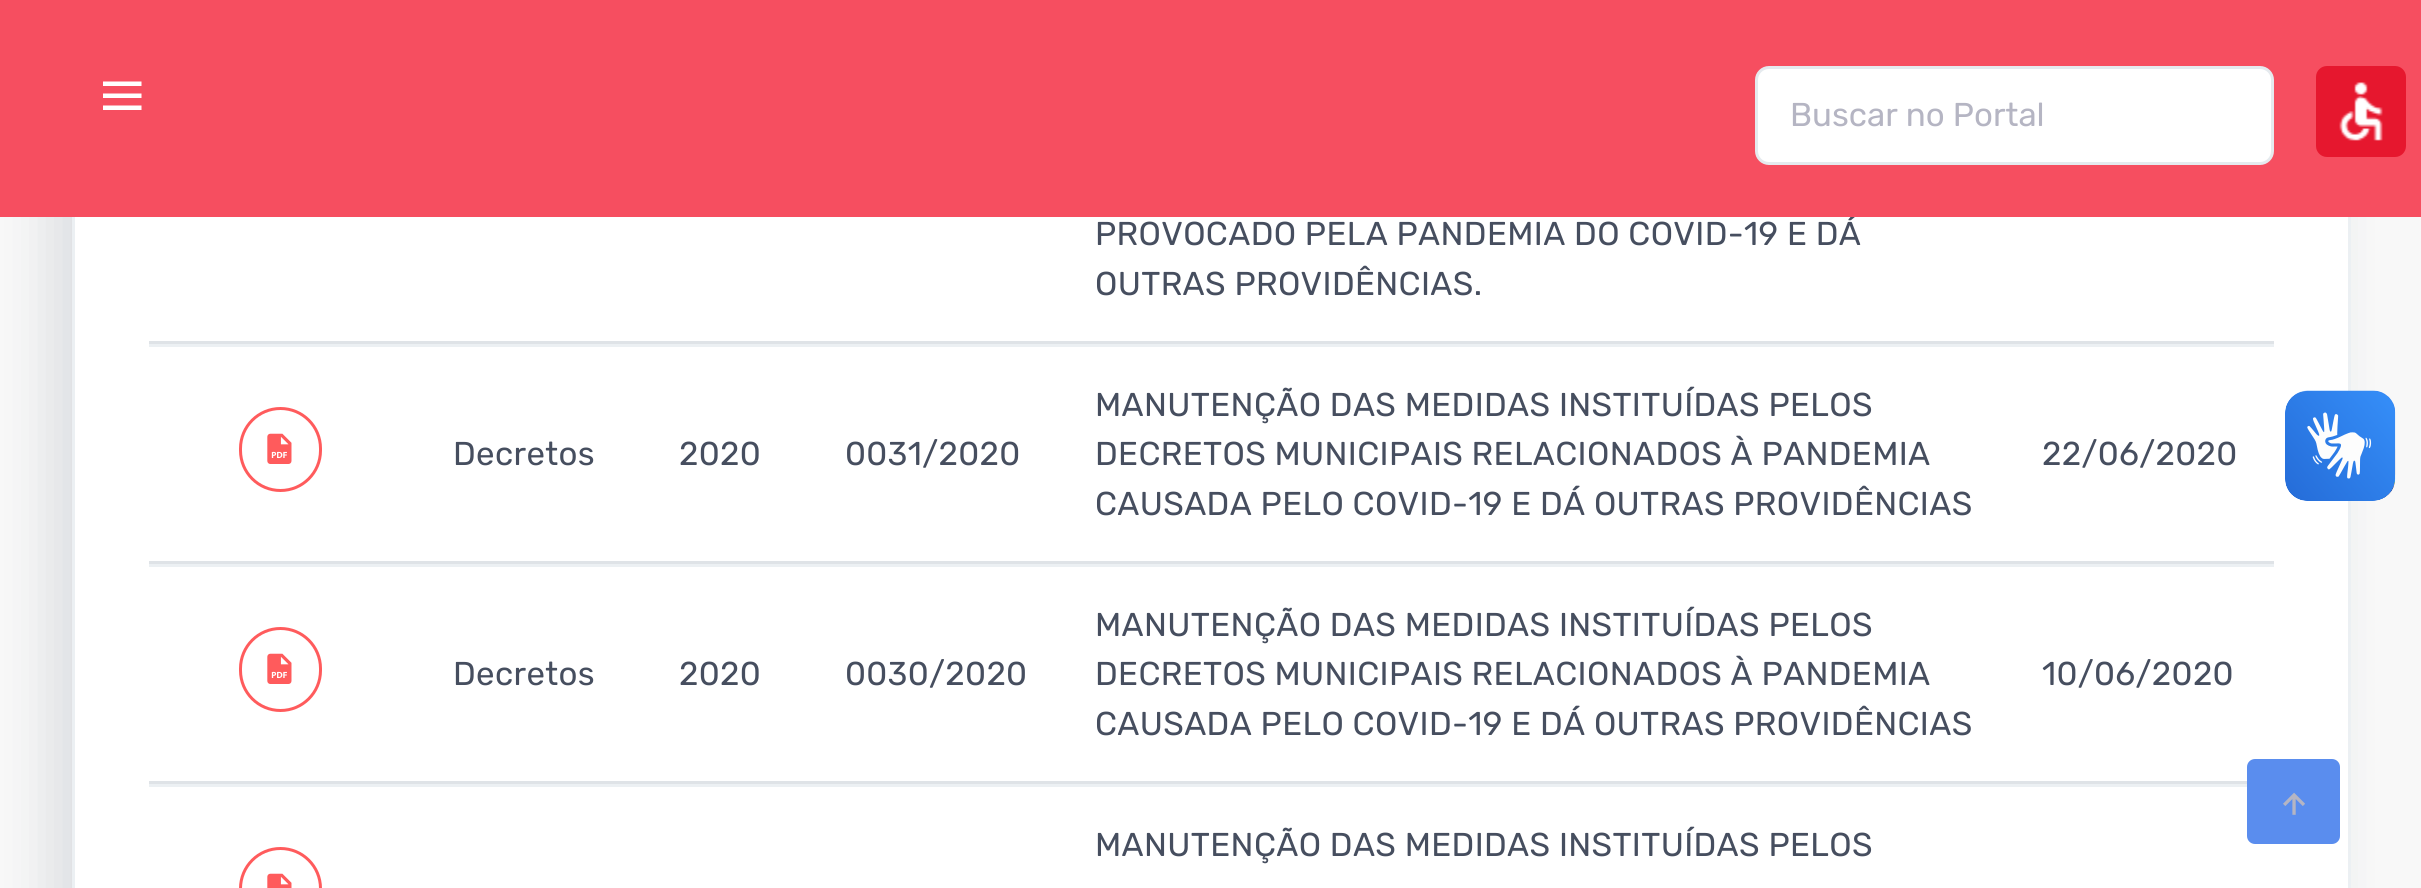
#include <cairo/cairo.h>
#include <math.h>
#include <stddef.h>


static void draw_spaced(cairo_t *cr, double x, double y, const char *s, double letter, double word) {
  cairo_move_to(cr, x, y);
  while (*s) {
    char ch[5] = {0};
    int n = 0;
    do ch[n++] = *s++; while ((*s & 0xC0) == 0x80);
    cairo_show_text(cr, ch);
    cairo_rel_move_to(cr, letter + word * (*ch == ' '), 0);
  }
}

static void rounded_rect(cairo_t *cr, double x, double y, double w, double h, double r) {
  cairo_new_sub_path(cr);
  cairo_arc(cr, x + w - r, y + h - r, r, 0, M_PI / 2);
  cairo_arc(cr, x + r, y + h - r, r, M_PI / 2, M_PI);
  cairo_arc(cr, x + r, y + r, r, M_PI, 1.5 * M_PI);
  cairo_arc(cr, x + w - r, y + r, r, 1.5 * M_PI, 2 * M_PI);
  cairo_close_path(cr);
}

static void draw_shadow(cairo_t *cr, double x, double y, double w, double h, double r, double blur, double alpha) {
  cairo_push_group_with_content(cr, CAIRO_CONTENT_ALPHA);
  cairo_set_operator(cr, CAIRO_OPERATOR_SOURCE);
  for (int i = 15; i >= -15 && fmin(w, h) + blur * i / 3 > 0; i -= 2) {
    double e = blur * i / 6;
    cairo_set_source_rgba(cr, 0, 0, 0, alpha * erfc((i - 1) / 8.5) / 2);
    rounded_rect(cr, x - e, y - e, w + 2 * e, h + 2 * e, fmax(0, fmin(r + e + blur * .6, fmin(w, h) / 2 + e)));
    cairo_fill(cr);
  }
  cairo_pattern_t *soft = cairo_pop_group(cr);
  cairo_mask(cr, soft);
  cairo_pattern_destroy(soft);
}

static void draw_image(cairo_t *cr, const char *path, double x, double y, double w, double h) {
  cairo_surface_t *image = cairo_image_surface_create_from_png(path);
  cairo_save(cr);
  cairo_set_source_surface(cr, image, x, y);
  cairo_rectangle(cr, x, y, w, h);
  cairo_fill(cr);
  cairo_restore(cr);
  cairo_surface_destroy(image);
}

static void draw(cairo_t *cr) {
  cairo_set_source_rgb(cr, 248 / 255.0, 248 / 255.0, 248 / 255.0);
  cairo_paint(cr);
  cairo_set_source_rgb(cr, 25 / 255.0, 42 / 255.0, 70 / 255.0);
  draw_shadow(cr, 50, -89, 2279, 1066, 14, 25, 0.13);
  cairo_set_source_rgb(cr, 1, 1, 1);
  cairo_rectangle(cr, 75, 217, 2273, 671);
  cairo_fill(cr);
  cairo_rectangle(cr, 73.5, -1.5, 2276, 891);
  cairo_set_source_rgb(cr, 236 / 255.0, 240 / 255.0, 243 / 255.0);
  cairo_set_line_width(cr, 3);
  cairo_stroke(cr);
  cairo_set_source_rgb(cr, 223 / 255.0, 227 / 255.0, 231 / 255.0);
  cairo_rectangle(cr, 149, 341, 2125, 3);
  cairo_fill(cr);
  cairo_set_source_rgb(cr, 236 / 255.0, 240 / 255.0, 243 / 255.0);
  cairo_rectangle(cr, 149, 344, 2125, 3);
  cairo_fill(cr);
  cairo_set_source_rgb(cr, 223 / 255.0, 227 / 255.0, 231 / 255.0);
  cairo_rectangle(cr, 149, 561, 2125, 3);
  cairo_fill(cr);
  rounded_rect(cr, 240.5, 408.5, 80, 82, 40);
  cairo_set_source_rgb(cr, 1, 91 / 255.0, 92 / 255.0);
  cairo_stroke(cr);
  draw_image(cr, "images/2.png", 267, 433, 25, 31);
  cairo_set_source_rgb(cr, 236 / 255.0, 240 / 255.0, 243 / 255.0);
  cairo_rectangle(cr, 149, 564, 2125, 3);
  cairo_fill(cr);
  cairo_set_source_rgb(cr, 223 / 255.0, 227 / 255.0, 231 / 255.0);
  cairo_rectangle(cr, 149, 781, 2098, 3);
  cairo_fill(cr);
  rounded_rect(cr, 240.5, 628.5, 80, 82, 40);
  cairo_set_source_rgb(cr, 1, 91 / 255.0, 92 / 255.0);
  cairo_stroke(cr);
  draw_image(cr, "images/2.png", 267, 653, 25, 31);
  cairo_set_source_rgb(cr, 236 / 255.0, 240 / 255.0, 243 / 255.0);
  cairo_rectangle(cr, 149, 784, 2098, 3);
  cairo_fill(cr);
  rounded_rect(cr, 240.5, 848.5, 80, 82, 40);
  cairo_set_source_rgb(cr, 1, 91 / 255.0, 92 / 255.0);
  cairo_stroke(cr);
  draw_image(cr, "images/3.png", 267, 873, 25, 15);
  draw_image(cr, "images/4.png", 2285, 390, 111, 111);
  draw_image(cr, "images/5.png", 2285, 391, 110, 110);
  cairo_set_source_rgb(cr, 90 / 255.0, 141 / 255.0, 238 / 255.0);
  rounded_rect(cr, 2247, 759, 93, 85, 8);
  cairo_fill(cr);
  draw_image(cr, "images/6.png", 2283, 792, 22, 23);
  cairo_select_font_face(cr, "Rubik", CAIRO_FONT_SLANT_NORMAL, CAIRO_FONT_WEIGHT_NORMAL);
  cairo_set_font_size(cr, 33);
  cairo_set_source_rgb(cr, 70 / 255.0, 78 / 255.0, 95 / 255.0);
  draw_spaced(cr, 1095, 245, "PROVOCADO PELA PANDEMIA DO COVID-19 E DÁ", 0.35, 0);
  cairo_set_source_rgb(cr, 246 / 255.0, 78 / 255.0, 96 / 255.0);
  cairo_rectangle(cr, 0, 0, 2421, 217);
  cairo_fill(cr);
  cairo_set_source_rgb(cr, 230 / 255.0, 23 / 255.0, 46 / 255.0);
  rounded_rect(cr, 2316, 66, 90, 91, 11);
  cairo_fill(cr);
  draw_image(cr, "images/1.png", 2339, 82, 44, 59);
  cairo_set_source_rgb(cr, 1, 1, 1);
  cairo_new_path(cr);
  cairo_move_to(cr, 103, 81.5);
  cairo_line_to(cr, 141.5, 81.5);
  cairo_line_to(cr, 141.5, 86);
  cairo_line_to(cr, 103, 86);
  cairo_close_path(cr);
  cairo_move_to(cr, 103, 93.5);
  cairo_line_to(cr, 141.5, 93.5);
  cairo_line_to(cr, 141.5, 98);
  cairo_line_to(cr, 103, 98);
  cairo_close_path(cr);
  cairo_move_to(cr, 103, 105.5);
  cairo_line_to(cr, 141.5, 105.5);
  cairo_line_to(cr, 141.5, 110);
  cairo_line_to(cr, 103, 110);
  cairo_close_path(cr);
  cairo_fill(cr);
  rounded_rect(cr, 1756.5, 67.5, 516, 96, 12.5);
  cairo_fill_preserve(cr);
  cairo_set_source_rgb(cr, 229 / 255.0, 234 / 255.0, 238 / 255.0);
  cairo_stroke(cr);
  cairo_set_source_rgb(cr, 181 / 255.0, 181 / 255.0, 195 / 255.0);
  cairo_move_to(cr, 1790, 126);
  cairo_show_text(cr, "Buscar no Portal");
  cairo_set_source_rgb(cr, 70 / 255.0, 78 / 255.0, 95 / 255.0);
  draw_spaced(cr, 1095, 295, "OUTRAS PROVIDÊNCIAS.", 0.35, 0);
  draw_spaced(cr, 453, 465, "Decretos", 0.35, 0);
  draw_spaced(cr, 679, 465, "2020", 0.35, 0);
  draw_spaced(cr, 845, 465, "0031/2020", 0.35, 0);
  draw_spaced(cr, 1095, 416, "MANUTENÇÃO DAS MEDIDAS INSTITUÍDAS PELOS", 0.35, 0);
  draw_spaced(cr, 1095, 465, "DECRETOS MUNICIPAIS RELACIONADOS À PANDEMIA", 0.35, 0);
  draw_spaced(cr, 1095, 515, "CAUSADA PELO COVID-19 E DÁ OUTRAS PROVIDÊNCIAS", 0.35, 0);
  draw_spaced(cr, 2042, 465, "22/06/2020", 0.35, 0);
  draw_spaced(cr, 453, 685, "Decretos", 0.35, 0);
  draw_spaced(cr, 679, 685, "2020", 0.35, 0);
  draw_spaced(cr, 845, 685, "0030/2020", 0.35, 0);
  draw_spaced(cr, 1095, 636, "MANUTENÇÃO DAS MEDIDAS INSTITUÍDAS PELOS", 0.35, 0);
  draw_spaced(cr, 1095, 685, "DECRETOS MUNICIPAIS RELACIONADOS À PANDEMIA", 0.35, 0);
  draw_spaced(cr, 1095, 735, "CAUSADA PELO COVID-19 E DÁ OUTRAS PROVIDÊNCIAS", 0.35, 0);
  draw_spaced(cr, 2042, 685, "10/06/2020", 0.35, 0);
  draw_spaced(cr, 1095, 856, "MANUTENÇÃO DAS MEDIDAS INSTITUÍDAS PELOS", 0.35, 0);
}

int main(void) {
  cairo_surface_t *surface = cairo_image_surface_create(CAIRO_FORMAT_RGB24, 2421, 888);
  cairo_t *cr = cairo_create(surface);
  cairo_font_options_t *options = cairo_font_options_create();
  cairo_font_options_set_hint_metrics(options, CAIRO_HINT_METRICS_OFF);
  cairo_font_options_set_hint_style(options, CAIRO_HINT_STYLE_NONE);
  cairo_set_font_options(cr, options);
  cairo_set_miter_limit(cr, 4);
  draw(cr);
  cairo_surface_write_to_png(surface, "out.png");
  cairo_font_options_destroy(options);
  cairo_destroy(cr);
  cairo_surface_destroy(surface);
  return 0;
}
